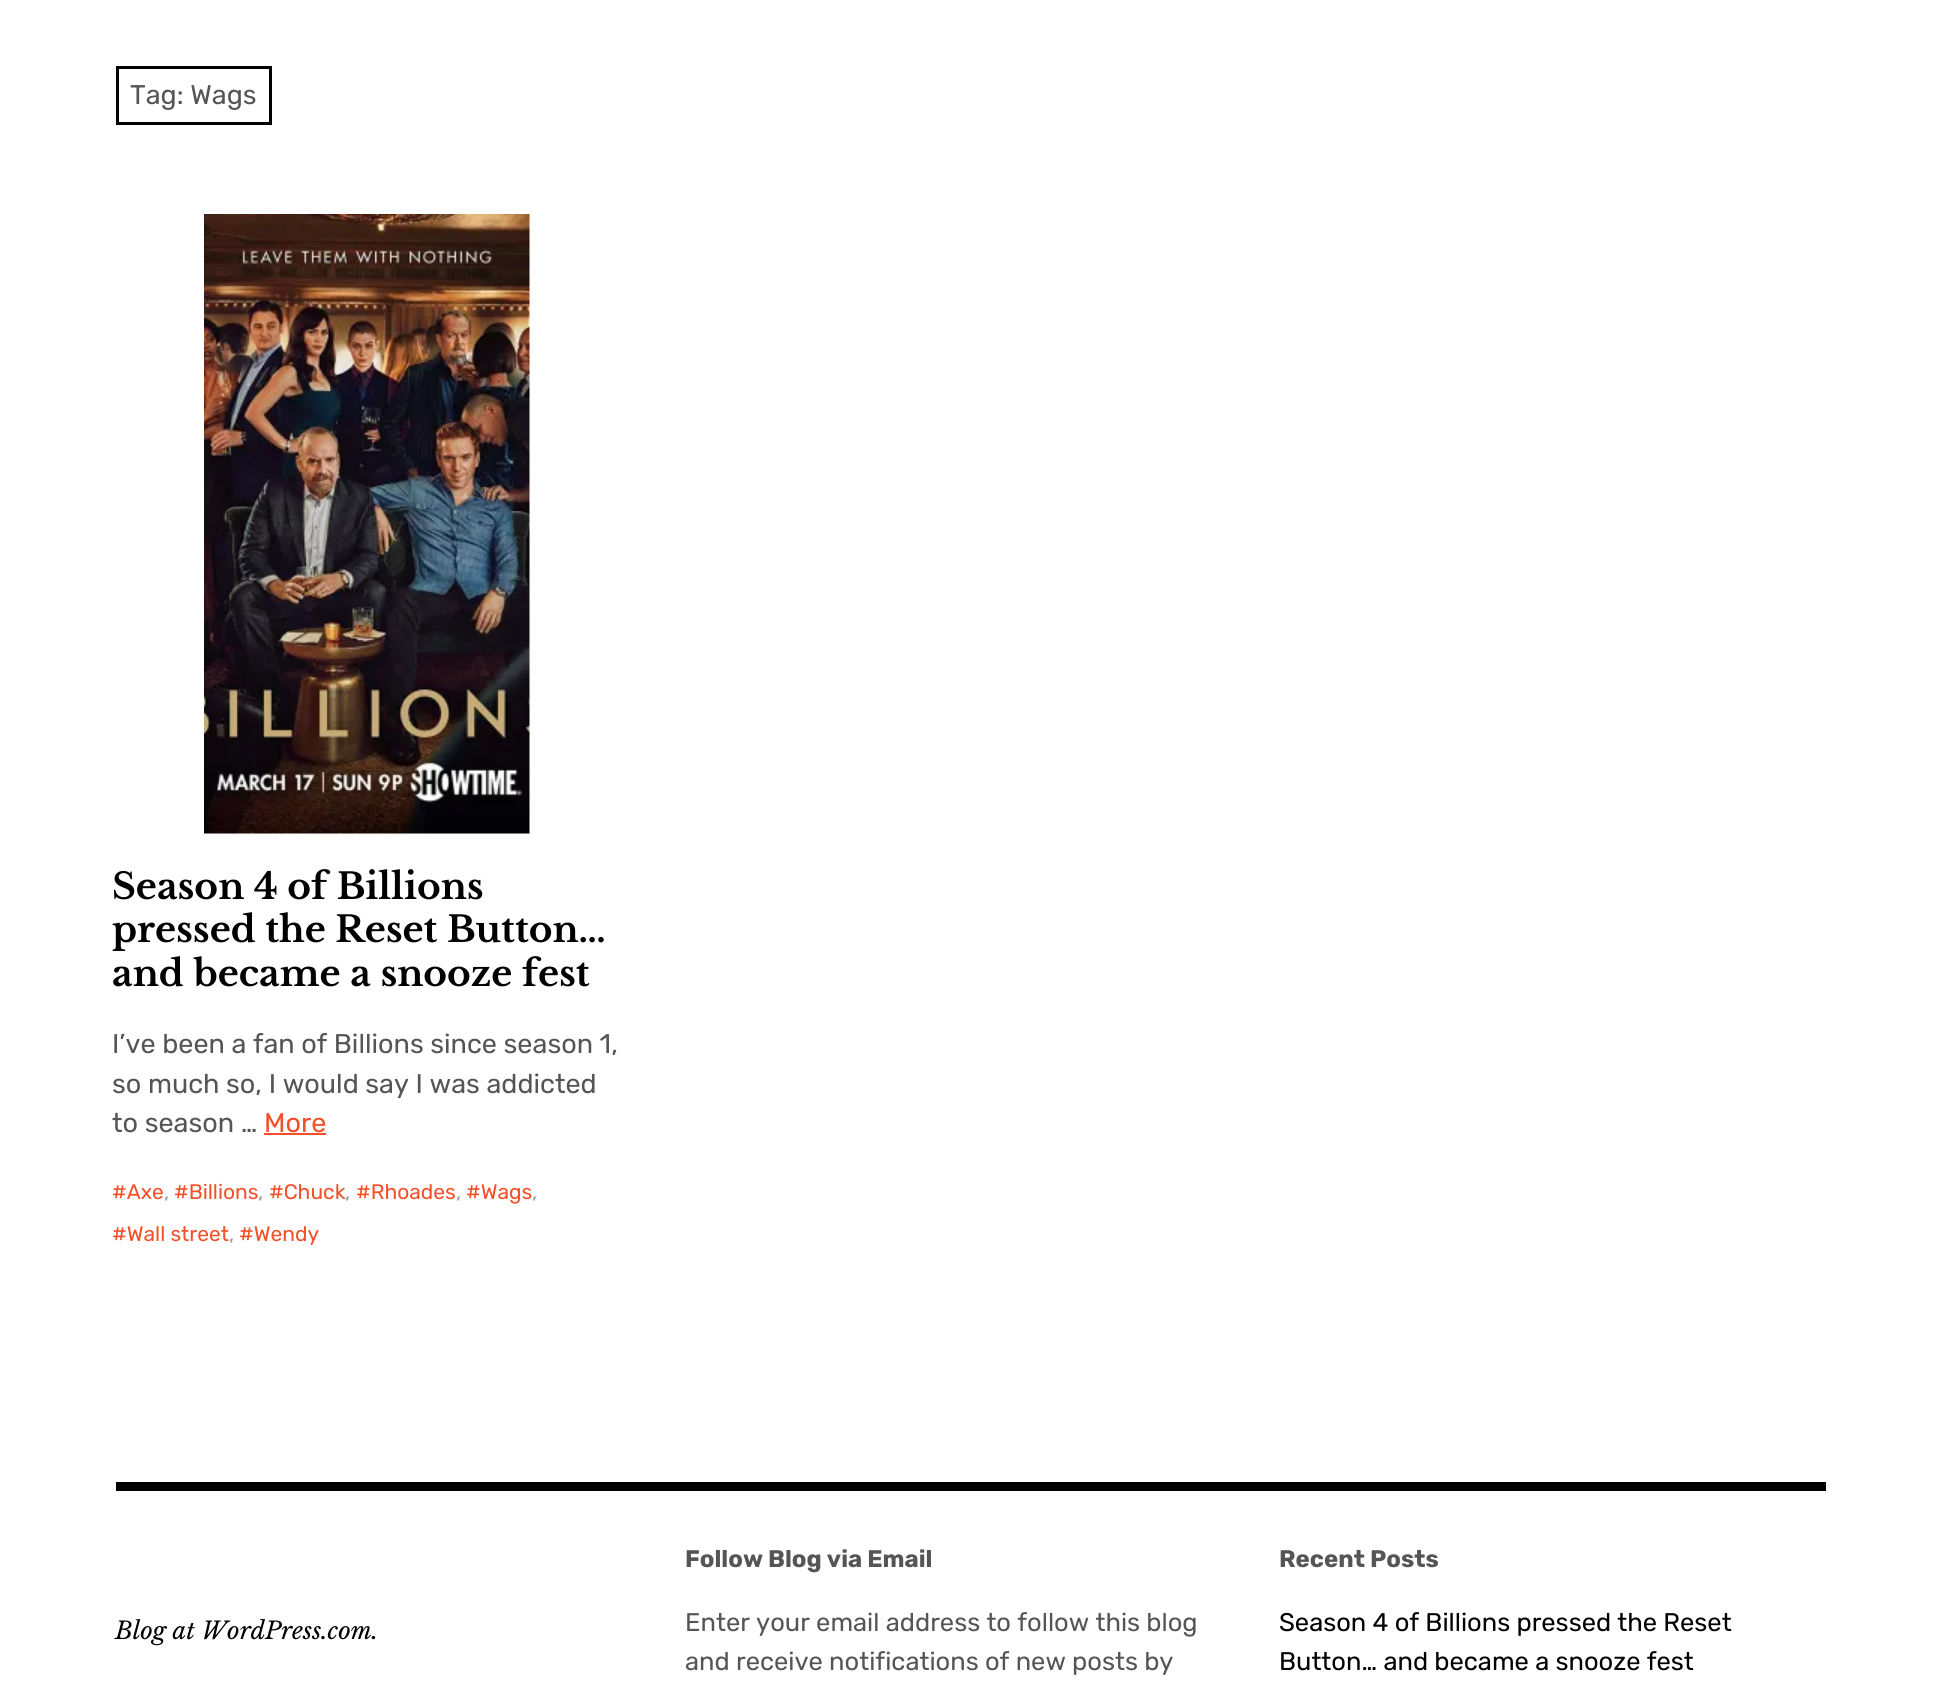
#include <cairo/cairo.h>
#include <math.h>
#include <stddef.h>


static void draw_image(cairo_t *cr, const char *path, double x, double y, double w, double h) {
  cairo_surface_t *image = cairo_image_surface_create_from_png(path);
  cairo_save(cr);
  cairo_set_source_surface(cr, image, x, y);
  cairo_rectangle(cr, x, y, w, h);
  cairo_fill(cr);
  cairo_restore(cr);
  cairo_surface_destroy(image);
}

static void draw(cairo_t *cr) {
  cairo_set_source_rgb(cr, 1, 1, 1);
  cairo_paint(cr);
  cairo_rectangle(cr, 117.5, 67.5, 153, 56);
  cairo_set_source_rgb(cr, 0, 0, 0);
  cairo_set_line_width(cr, 3);
  cairo_stroke(cr);
  draw_image(cr, "images/1.png", 204, 214, 326, 620);
  cairo_set_source_rgb(cr, 243 / 255.0, 80 / 255.0, 41 / 255.0);
  cairo_rectangle(cr, 264, 1133, 62, 2);
  cairo_fill(cr);
  cairo_set_source_rgb(cr, 0, 0, 0);
  cairo_rectangle(cr, 116, 1482, 1710, 9);
  cairo_fill(cr);
  cairo_select_font_face(cr, "Rubik", CAIRO_FONT_SLANT_NORMAL, CAIRO_FONT_WEIGHT_NORMAL);
  cairo_set_font_size(cr, 27);
  cairo_set_source_rgb(cr, 85 / 255.0, 85 / 255.0, 85 / 255.0);
  cairo_move_to(cr, 130, 104);
  cairo_show_text(cr, "Tag: Wags");
  cairo_select_font_face(cr, "Libre Baskerville", CAIRO_FONT_SLANT_NORMAL, CAIRO_FONT_WEIGHT_BOLD);
  cairo_set_font_size(cr, 36);
  cairo_set_source_rgb(cr, 0, 0, 0);
  cairo_move_to(cr, 112, 899);
  cairo_show_text(cr, "Season 4 of Billions");
  cairo_move_to(cr, 112, 942);
  cairo_show_text(cr, "pressed the Reset Button…");
  cairo_move_to(cr, 112, 986);
  cairo_show_text(cr, "and became a snooze fest");
  cairo_select_font_face(cr, "Rubik", CAIRO_FONT_SLANT_NORMAL, CAIRO_FONT_WEIGHT_NORMAL);
  cairo_set_font_size(cr, 27);
  cairo_set_source_rgb(cr, 85 / 255.0, 85 / 255.0, 85 / 255.0);
  cairo_move_to(cr, 112, 1053);
  cairo_show_text(cr, "I’ve been a fan of Billions since season 1,");
  cairo_move_to(cr, 112, 1093);
  cairo_show_text(cr, "so much so, I would say I was addicted");
  cairo_move_to(cr, 112, 1132);
  cairo_show_text(cr, "to season …");
  cairo_set_source_rgb(cr, 243 / 255.0, 80 / 255.0, 41 / 255.0);
  cairo_move_to(cr, 264, 1132);
  cairo_show_text(cr, "More");
  cairo_set_font_size(cr, 21);
  cairo_move_to(cr, 112, 1199);
  cairo_show_text(cr, "#Axe");
  cairo_set_source_rgb(cr, 153 / 255.0, 153 / 255.0, 153 / 255.0);
  cairo_move_to(cr, 164, 1199);
  cairo_show_text(cr, ",");
  cairo_set_source_rgb(cr, 243 / 255.0, 80 / 255.0, 41 / 255.0);
  cairo_move_to(cr, 174, 1199);
  cairo_show_text(cr, "#Billions");
  cairo_set_source_rgb(cr, 153 / 255.0, 153 / 255.0, 153 / 255.0);
  cairo_move_to(cr, 258, 1199);
  cairo_show_text(cr, ",");
  cairo_set_source_rgb(cr, 243 / 255.0, 80 / 255.0, 41 / 255.0);
  cairo_move_to(cr, 269, 1199);
  cairo_show_text(cr, "#Chuck");
  cairo_set_source_rgb(cr, 153 / 255.0, 153 / 255.0, 153 / 255.0);
  cairo_move_to(cr, 345, 1199);
  cairo_show_text(cr, ",");
  cairo_set_source_rgb(cr, 243 / 255.0, 80 / 255.0, 41 / 255.0);
  cairo_move_to(cr, 356, 1199);
  cairo_show_text(cr, "#Rhoades");
  cairo_set_source_rgb(cr, 153 / 255.0, 153 / 255.0, 153 / 255.0);
  cairo_move_to(cr, 456, 1199);
  cairo_show_text(cr, ",");
  cairo_set_source_rgb(cr, 243 / 255.0, 80 / 255.0, 41 / 255.0);
  cairo_move_to(cr, 466, 1199);
  cairo_show_text(cr, "#Wags");
  cairo_set_source_rgb(cr, 153 / 255.0, 153 / 255.0, 153 / 255.0);
  cairo_move_to(cr, 532, 1199);
  cairo_show_text(cr, ",");
  cairo_set_source_rgb(cr, 243 / 255.0, 80 / 255.0, 41 / 255.0);
  cairo_move_to(cr, 112, 1241);
  cairo_show_text(cr, "#Wall street");
  cairo_set_source_rgb(cr, 153 / 255.0, 153 / 255.0, 153 / 255.0);
  cairo_move_to(cr, 229, 1241);
  cairo_show_text(cr, ",");
  cairo_set_source_rgb(cr, 243 / 255.0, 80 / 255.0, 41 / 255.0);
  cairo_move_to(cr, 239, 1241);
  cairo_show_text(cr, "#Wendy");
  cairo_select_font_face(cr, "Libre Baskerville", CAIRO_FONT_SLANT_ITALIC, CAIRO_FONT_WEIGHT_NORMAL);
  cairo_set_font_size(cr, 24);
  cairo_set_source_rgb(cr, 0, 0, 0);
  cairo_move_to(cr, 115, 1639);
  cairo_show_text(cr, "Blog at WordPress.com.");
  cairo_select_font_face(cr, "Rubik", CAIRO_FONT_SLANT_NORMAL, CAIRO_FONT_WEIGHT_BOLD);
  cairo_set_source_rgb(cr, 85 / 255.0, 85 / 255.0, 85 / 255.0);
  cairo_move_to(cr, 685, 1567);
  cairo_show_text(cr, "Follow Blog via Email");
  cairo_select_font_face(cr, "Rubik", CAIRO_FONT_SLANT_NORMAL, CAIRO_FONT_WEIGHT_NORMAL);
  cairo_set_font_size(cr, 25.5);
  cairo_move_to(cr, 685, 1631);
  cairo_show_text(cr, "Enter your email address to follow this blog");
  cairo_move_to(cr, 685, 1670);
  cairo_show_text(cr, "and receive notifications of new posts by");
  cairo_select_font_face(cr, "Rubik", CAIRO_FONT_SLANT_NORMAL, CAIRO_FONT_WEIGHT_BOLD);
  cairo_set_font_size(cr, 24);
  cairo_move_to(cr, 1279, 1567);
  cairo_show_text(cr, "Recent Posts");
  cairo_select_font_face(cr, "Rubik", CAIRO_FONT_SLANT_NORMAL, CAIRO_FONT_WEIGHT_NORMAL);
  cairo_set_font_size(cr, 25.5);
  cairo_set_source_rgb(cr, 0, 0, 0);
  cairo_move_to(cr, 1279, 1631);
  cairo_show_text(cr, "Season 4 of Billions pressed the Reset");
  cairo_move_to(cr, 1279, 1670);
  cairo_show_text(cr, "Button… and became a snooze fest");
}

int main(void) {
  cairo_surface_t *surface = cairo_image_surface_create(CAIRO_FORMAT_RGB24, 1939, 1694);
  cairo_t *cr = cairo_create(surface);
  cairo_font_options_t *options = cairo_font_options_create();
  cairo_font_options_set_hint_metrics(options, CAIRO_HINT_METRICS_OFF);
  cairo_font_options_set_hint_style(options, CAIRO_HINT_STYLE_NONE);
  cairo_set_font_options(cr, options);
  cairo_set_miter_limit(cr, 4);
  draw(cr);
  cairo_surface_write_to_png(surface, "out.png");
  cairo_font_options_destroy(options);
  cairo_destroy(cr);
  cairo_surface_destroy(surface);
  return 0;
}
